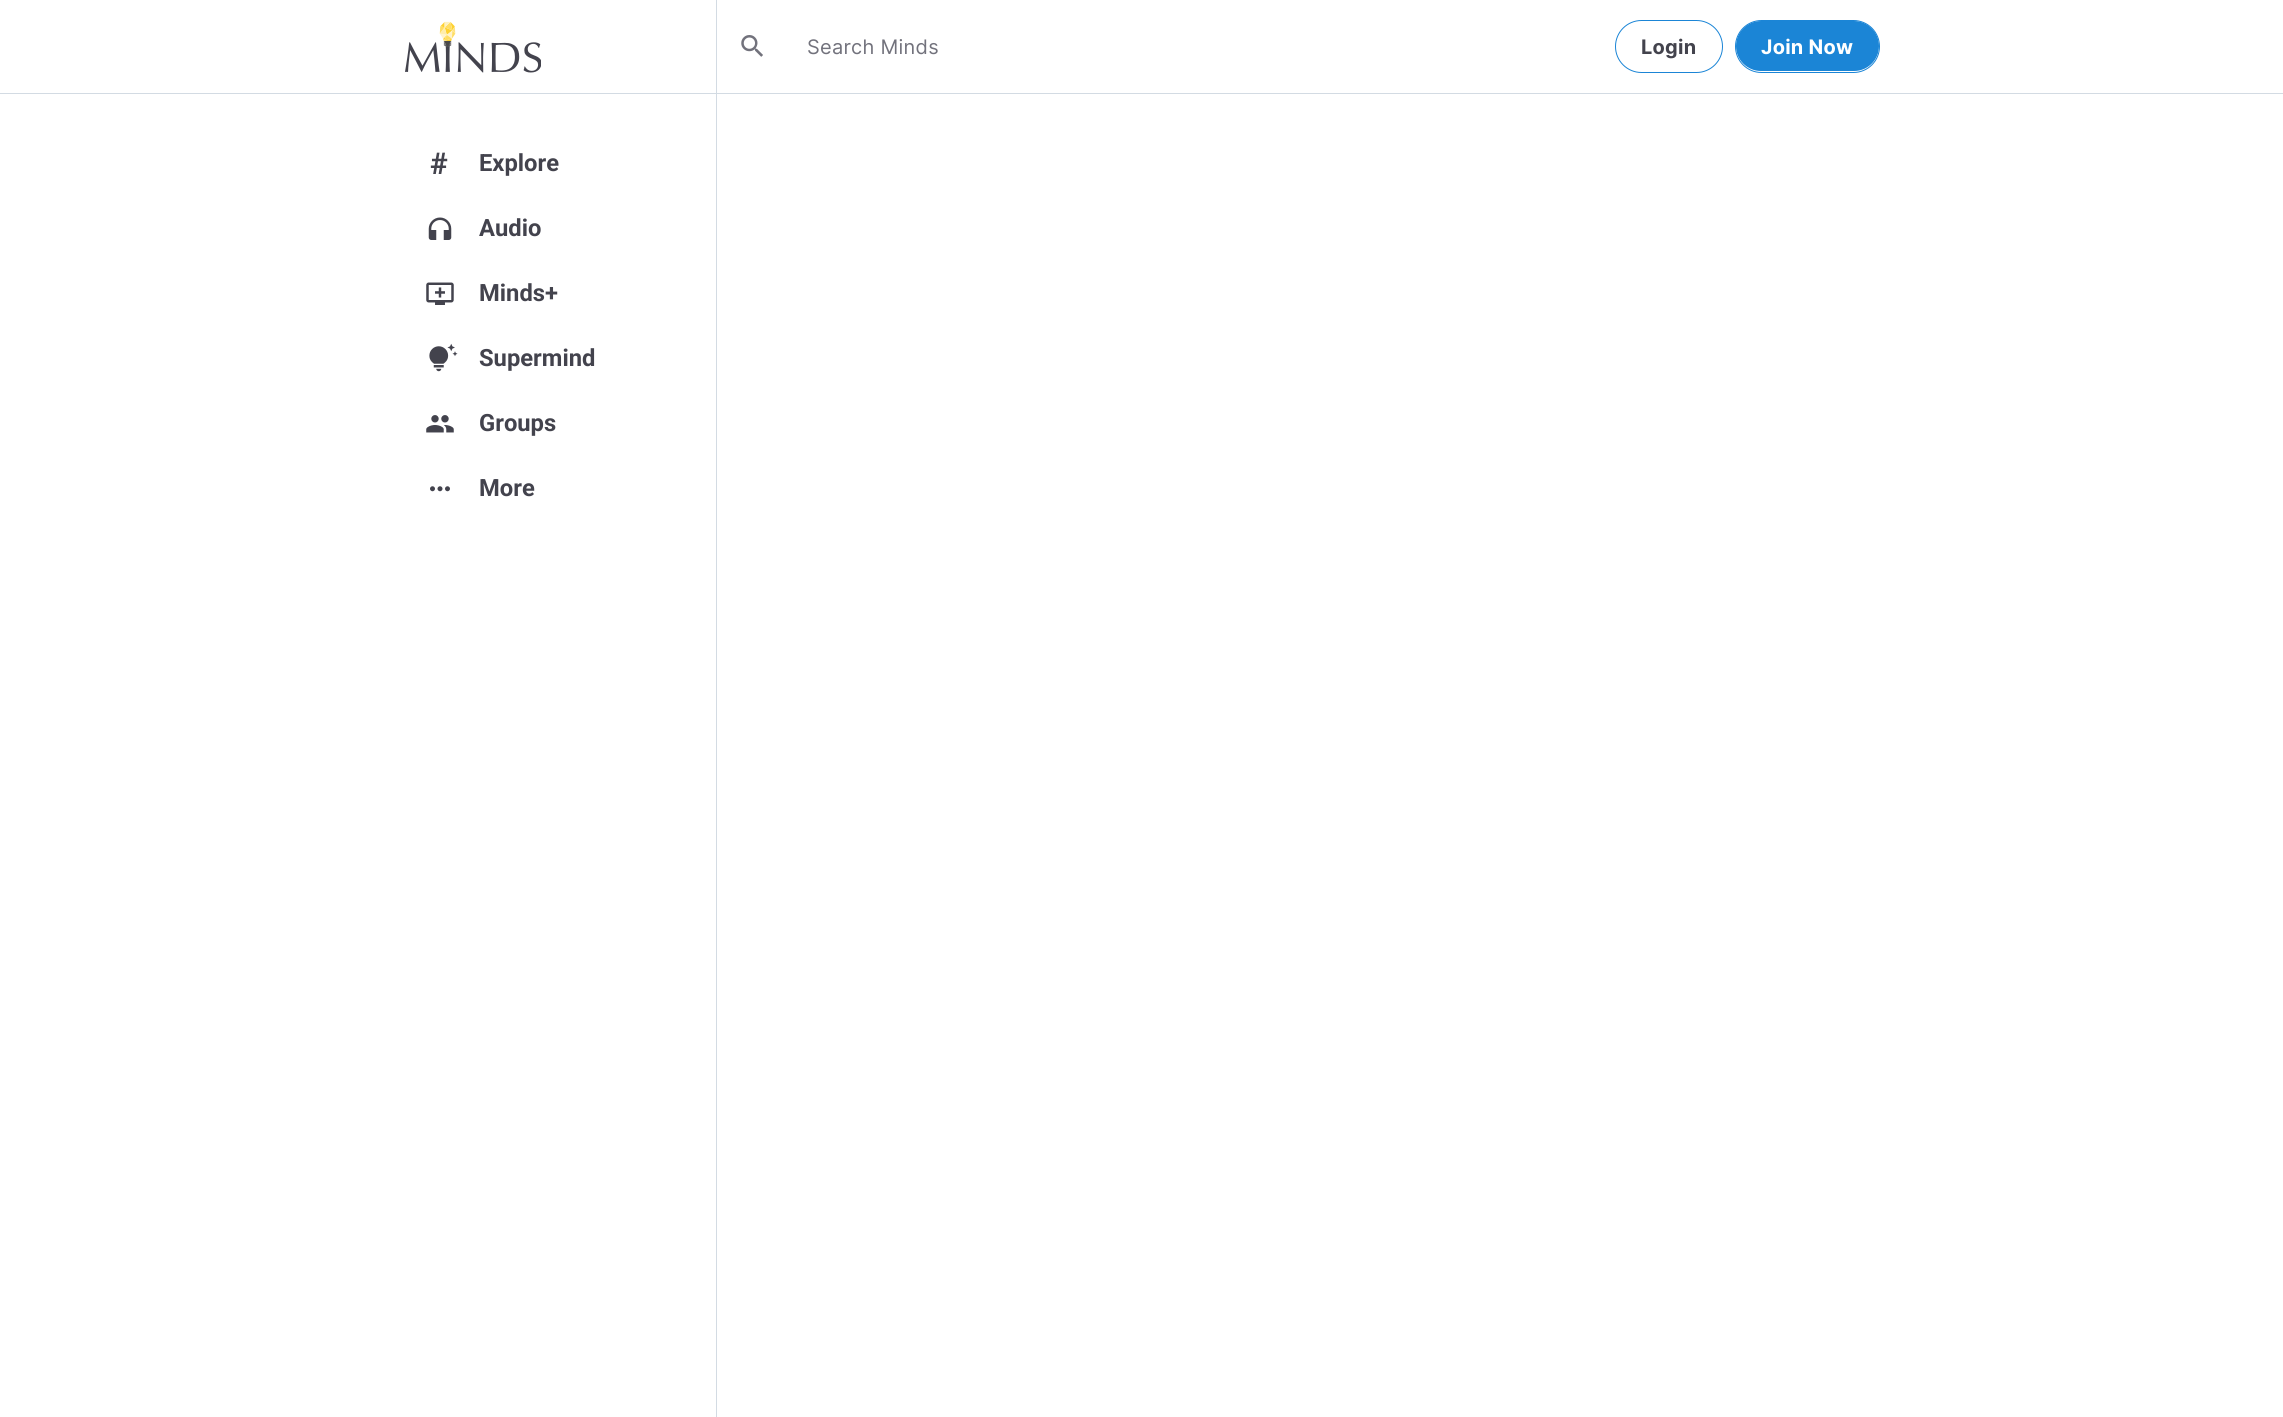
#include <cairo/cairo.h>
#include <math.h>
#include <stddef.h>


static void draw_spaced(cairo_t *cr, double x, double y, const char *s, double letter, double word) {
  cairo_move_to(cr, x, y);
  while (*s) {
    char ch[5] = {0};
    int n = 0;
    do ch[n++] = *s++; while ((*s & 0xC0) == 0x80);
    cairo_show_text(cr, ch);
    cairo_rel_move_to(cr, letter + word * (*ch == ' '), 0);
  }
}

static void rounded_rect(cairo_t *cr, double x, double y, double w, double h, double r) {
  cairo_new_sub_path(cr);
  cairo_arc(cr, x + w - r, y + h - r, r, 0, M_PI / 2);
  cairo_arc(cr, x + r, y + h - r, r, M_PI / 2, M_PI);
  cairo_arc(cr, x + r, y + r, r, M_PI, 1.5 * M_PI);
  cairo_arc(cr, x + w - r, y + r, r, 1.5 * M_PI, 2 * M_PI);
  cairo_close_path(cr);
}

static void draw_image(cairo_t *cr, const char *path, double x, double y, double w, double h) {
  cairo_surface_t *image = cairo_image_surface_create_from_png(path);
  cairo_save(cr);
  cairo_set_source_surface(cr, image, x, y);
  cairo_rectangle(cr, x, y, w, h);
  cairo_fill(cr);
  cairo_restore(cr);
  cairo_surface_destroy(image);
}

static void draw(cairo_t *cr) {
  cairo_set_source_rgb(cr, 1, 1, 1);
  cairo_paint(cr);
  cairo_set_source_rgb(cr, 211 / 255.0, 219 / 255.0, 227 / 255.0);
  cairo_rectangle(cr, 0, 93, 2283, 1);
  cairo_fill(cr);
  cairo_rectangle(cr, 716, 0, 1, 93);
  cairo_fill(cr);
  draw_image(cr, "images/1.png", 405, 21, 136, 52);
  draw_image(cr, "images/2.png", 741, 35, 22, 22);
  rounded_rect(cr, 1615.5, 20.5, 107, 52, 26);
  cairo_set_source_rgb(cr, 27 / 255.0, 133 / 255.0, 214 / 255.0);
  cairo_set_line_width(cr, 1);
  cairo_stroke(cr);
  rounded_rect(cr, 1736, 21, 143, 50, 25);
  cairo_fill(cr);
  rounded_rect(cr, 1735.5, 20.5, 144, 52, 26);
  cairo_stroke(cr);
  cairo_set_source_rgb(cr, 211 / 255.0, 219 / 255.0, 227 / 255.0);
  cairo_rectangle(cr, 716, 94, 1, 1323);
  cairo_fill(cr);
  draw_image(cr, "images/3.png", 428, 217, 24, 23);
  draw_image(cr, "images/4.png", 426, 282, 28, 23);
  draw_image(cr, "images/5.png", 429, 343, 29, 29);
  draw_image(cr, "images/6.png", 426, 415, 28, 18);
  draw_image(cr, "images/7.png", 430, 486, 20, 6);
  cairo_select_font_face(cr, "Inter", CAIRO_FONT_SLANT_NORMAL, CAIRO_FONT_WEIGHT_NORMAL);
  cairo_set_font_size(cr, 20);
  cairo_set_source_rgb(cr, 114 / 255.0, 114 / 255.0, 124 / 255.0);
  draw_spaced(cr, 807, 54, "Search Minds", 0.25, 0);
  cairo_select_font_face(cr, "Inter", CAIRO_FONT_SLANT_NORMAL, CAIRO_FONT_WEIGHT_BOLD);
  cairo_set_source_rgb(cr, 67 / 255.0, 67 / 255.0, 77 / 255.0);
  draw_spaced(cr, 1641, 54, "Login", 0.25, 0);
  cairo_set_source_rgb(cr, 1, 1, 1);
  draw_spaced(cr, 1761, 54, "Join Now", 0.25, 0);
  cairo_select_font_face(cr, "Roboto", CAIRO_FONT_SLANT_NORMAL, CAIRO_FONT_WEIGHT_BOLD);
  cairo_set_font_size(cr, 30);
  cairo_set_source_rgb(cr, 67 / 255.0, 67 / 255.0, 77 / 255.0);
  cairo_move_to(cr, 430, 174);
  cairo_show_text(cr, "#");
  cairo_set_font_size(cr, 23.75);
  cairo_move_to(cr, 479, 171);
  cairo_show_text(cr, "Explore");
  cairo_move_to(cr, 479, 236);
  cairo_show_text(cr, "Audio");
  cairo_move_to(cr, 479, 301);
  cairo_show_text(cr, "Minds+");
  cairo_move_to(cr, 479, 366);
  cairo_show_text(cr, "Supermind");
  cairo_move_to(cr, 479, 431);
  cairo_show_text(cr, "Groups");
  cairo_move_to(cr, 479, 496);
  cairo_show_text(cr, "More");
}

int main(void) {
  cairo_surface_t *surface = cairo_image_surface_create(CAIRO_FORMAT_RGB24, 2283, 1417);
  cairo_t *cr = cairo_create(surface);
  cairo_font_options_t *options = cairo_font_options_create();
  cairo_font_options_set_hint_metrics(options, CAIRO_HINT_METRICS_OFF);
  cairo_font_options_set_hint_style(options, CAIRO_HINT_STYLE_NONE);
  cairo_set_font_options(cr, options);
  cairo_set_miter_limit(cr, 4);
  draw(cr);
  cairo_surface_write_to_png(surface, "out.png");
  cairo_font_options_destroy(options);
  cairo_destroy(cr);
  cairo_surface_destroy(surface);
  return 0;
}
